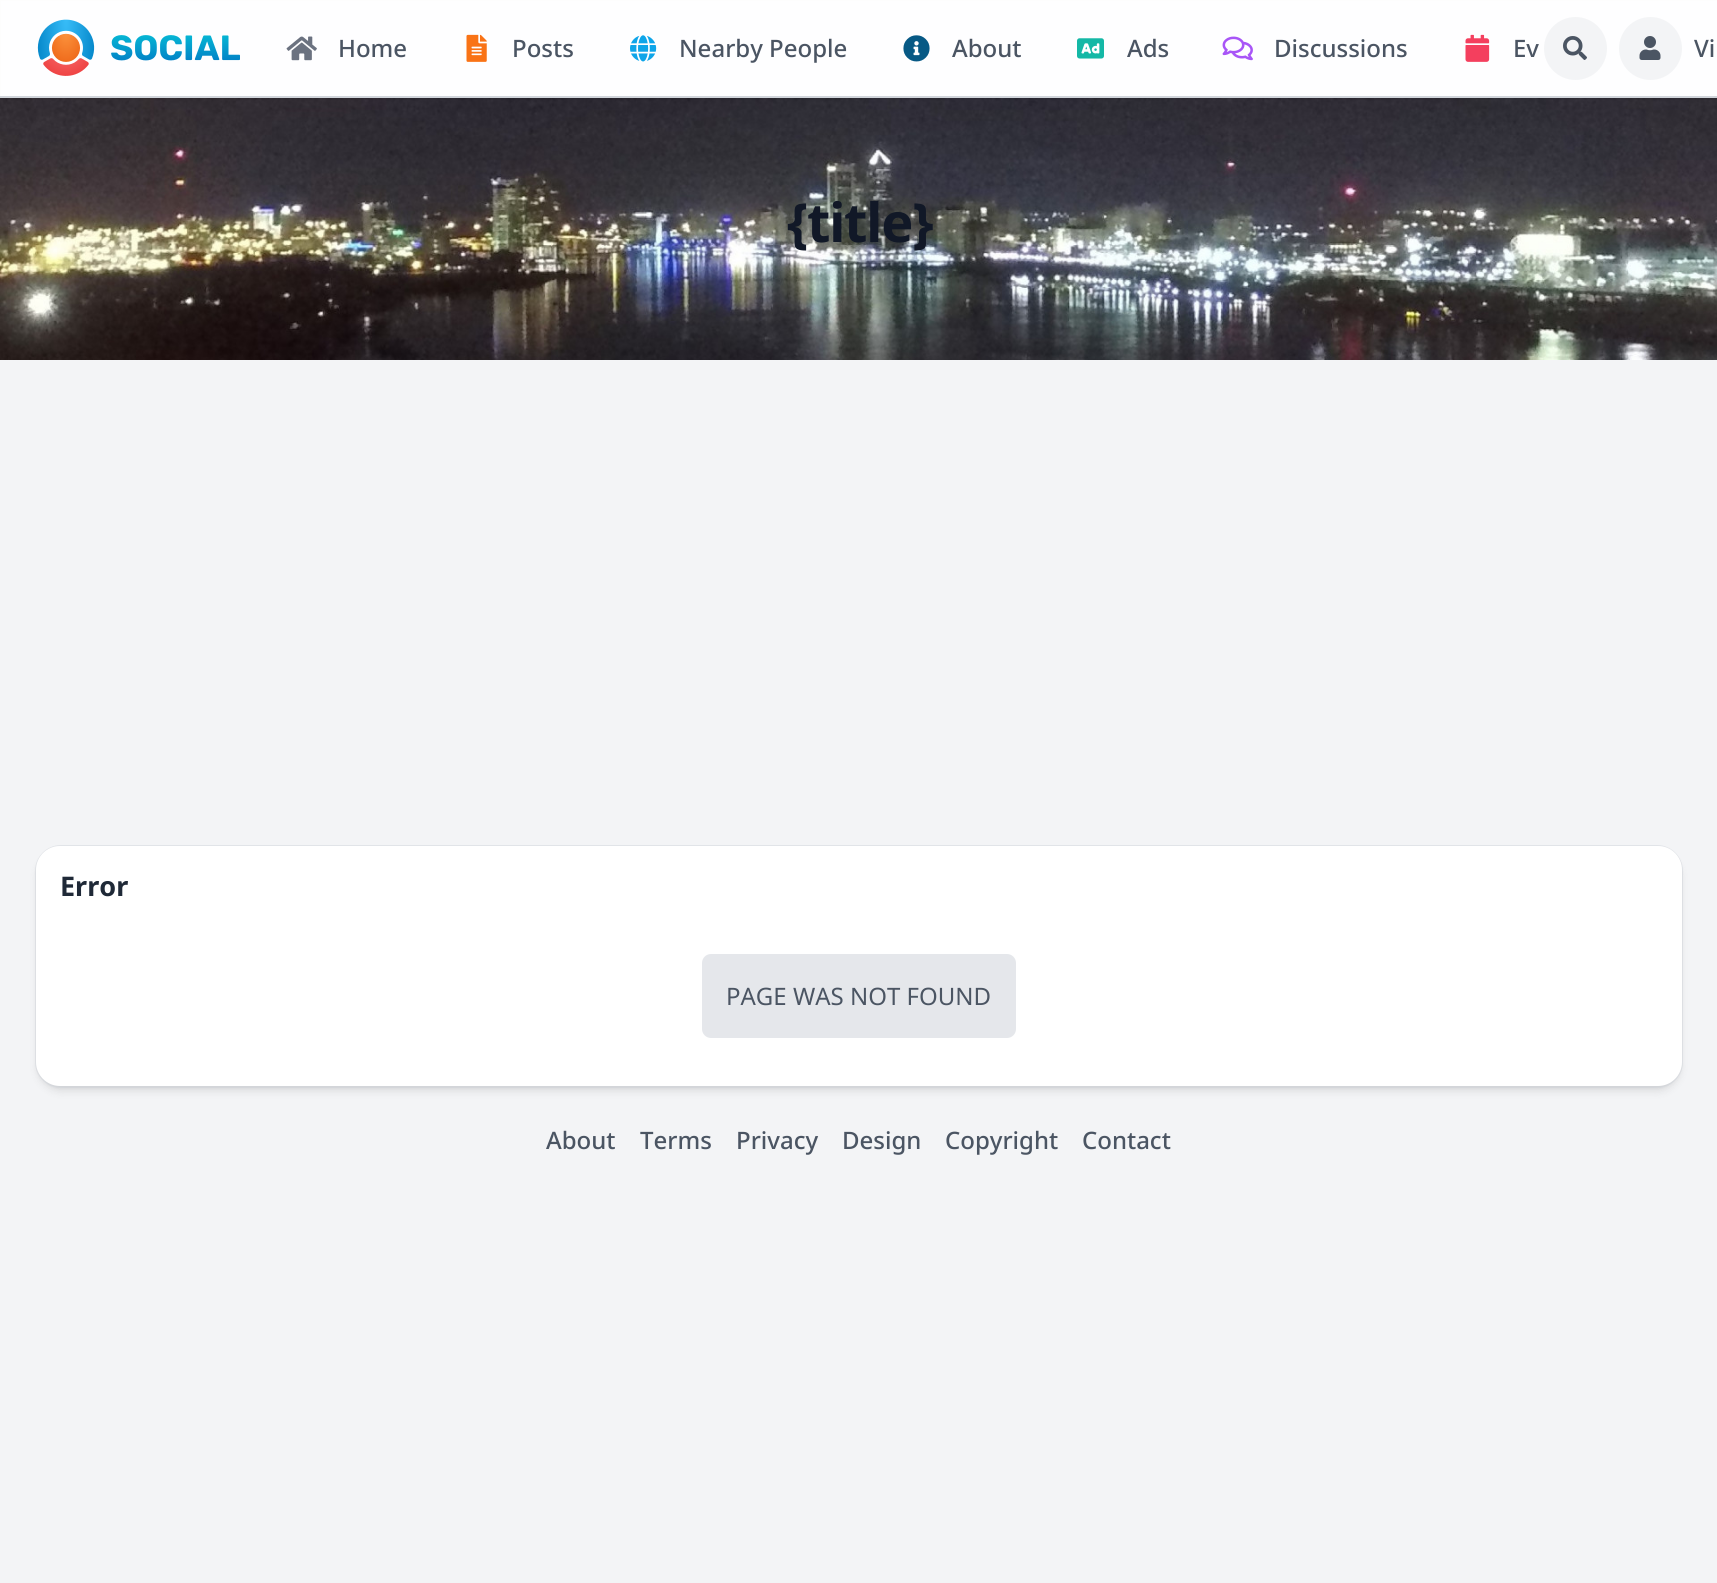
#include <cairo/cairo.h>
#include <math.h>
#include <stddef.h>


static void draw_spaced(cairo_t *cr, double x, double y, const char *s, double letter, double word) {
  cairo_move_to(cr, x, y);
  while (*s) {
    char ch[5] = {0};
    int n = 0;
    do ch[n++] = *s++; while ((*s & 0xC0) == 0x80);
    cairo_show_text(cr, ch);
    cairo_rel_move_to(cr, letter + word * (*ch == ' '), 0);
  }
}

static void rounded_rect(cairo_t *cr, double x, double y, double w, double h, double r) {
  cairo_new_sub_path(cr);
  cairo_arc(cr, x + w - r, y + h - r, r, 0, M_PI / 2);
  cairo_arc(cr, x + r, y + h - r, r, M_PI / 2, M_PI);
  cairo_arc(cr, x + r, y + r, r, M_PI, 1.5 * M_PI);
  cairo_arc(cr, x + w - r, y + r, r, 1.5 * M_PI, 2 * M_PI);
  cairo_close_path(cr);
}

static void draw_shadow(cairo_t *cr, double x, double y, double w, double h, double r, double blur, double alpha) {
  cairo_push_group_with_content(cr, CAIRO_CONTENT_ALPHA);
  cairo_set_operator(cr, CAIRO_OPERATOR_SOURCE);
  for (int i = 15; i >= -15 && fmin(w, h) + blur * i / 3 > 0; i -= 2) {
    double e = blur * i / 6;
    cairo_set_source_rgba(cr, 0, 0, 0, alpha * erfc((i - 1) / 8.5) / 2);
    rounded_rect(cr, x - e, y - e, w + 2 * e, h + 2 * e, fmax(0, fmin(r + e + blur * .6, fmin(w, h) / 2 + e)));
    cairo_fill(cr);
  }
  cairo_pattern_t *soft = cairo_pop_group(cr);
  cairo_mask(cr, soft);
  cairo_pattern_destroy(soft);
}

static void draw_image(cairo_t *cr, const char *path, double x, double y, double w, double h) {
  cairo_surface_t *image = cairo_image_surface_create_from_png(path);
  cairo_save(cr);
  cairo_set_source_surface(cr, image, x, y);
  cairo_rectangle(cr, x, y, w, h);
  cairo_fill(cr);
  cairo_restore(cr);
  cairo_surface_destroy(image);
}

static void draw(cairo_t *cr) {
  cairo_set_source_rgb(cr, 243 / 255.0, 244 / 255.0, 246 / 255.0);
  cairo_paint(cr);
  draw_image(cr, "images/11.png", 0, 98, 1717, 262);
  cairo_save(cr);
  cairo_rectangle(cr, 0, 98, 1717, 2);
  cairo_clip(cr);
  cairo_set_source_rgb(cr, 0, 0, 0);
  draw_shadow(cr, 0, 2, 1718, 96, 0, 2, 0.1);
  cairo_restore(cr);
  cairo_rectangle(cr, 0, 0, 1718, 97);
  cairo_set_source_rgb(cr, 209 / 255.0, 213 / 255.0, 219 / 255.0);
  cairo_stroke(cr);
  cairo_set_source_rgba(cr, 1, 1, 1, 0.95);
  cairo_rectangle(cr, 0, 0, 1717, 96);
  cairo_fill(cr);
  cairo_set_source_rgb(cr, 243 / 255.0, 244 / 255.0, 246 / 255.0);
  cairo_arc(cr, 1650.5, 48.5, 31.5, 0, 2 * M_PI);
  cairo_fill(cr);
  draw_image(cr, "images/1.png", 1639, 36, 22, 24);
  draw_image(cr, "images/2.png", 37, 19, 203, 57);
  cairo_arc(cr, 1575.5, 48.5, 31.5, 0, 2 * M_PI);
  cairo_fill(cr);
  draw_image(cr, "images/3.png", 1563, 36, 24, 24);
  draw_image(cr, "images/4.png", 286, 36, 31, 25);
  draw_image(cr, "images/5.png", 466, 34, 21, 28);
  draw_image(cr, "images/6.png", 630, 35, 27, 27);
  draw_image(cr, "images/7.png", 903, 35, 27, 27);
  draw_image(cr, "images/8.png", 1077, 38, 27, 21);
  draw_image(cr, "images/9.png", 1222, 36, 31, 25);
  draw_image(cr, "images/10.png", 1465, 34, 25, 28);
  cairo_set_source_rgb(cr, 0, 0, 0);
  draw_shadow(cr, 39, 852, 1640, 234, 21, 3, 0.1);
  draw_shadow(cr, 38, 854, 1642, 237, 23, 4.5, 0.1);
  rounded_rect(cr, 36, 846, 1646, 241, 25);
  cairo_set_source_rgba(cr, 209 / 255.0, 213 / 255.0, 219 / 255.0, 0.5);
  cairo_stroke(cr);
  cairo_set_source_rgb(cr, 1, 1, 1);
  rounded_rect(cr, 36, 846, 1646, 240, 24);
  cairo_fill(cr);
  cairo_set_source_rgb(cr, 229 / 255.0, 231 / 255.0, 235 / 255.0);
  rounded_rect(cr, 702, 954, 314, 84, 9);
  cairo_fill(cr);
  cairo_select_font_face(cr, "Noto Sans Medium", CAIRO_FONT_SLANT_NORMAL, CAIRO_FONT_WEIGHT_NORMAL);
  cairo_set_font_size(cr, 24);
  cairo_set_source_rgb(cr, 75 / 255.0, 85 / 255.0, 99 / 255.0);
  cairo_move_to(cr, 338, 57);
  cairo_show_text(cr, "Home");
  cairo_move_to(cr, 512, 57);
  cairo_show_text(cr, "Posts");
  cairo_move_to(cr, 679, 57);
  cairo_show_text(cr, "Nearby People");
  cairo_move_to(cr, 952, 57);
  cairo_show_text(cr, "About");
  cairo_move_to(cr, 1127, 57);
  cairo_show_text(cr, "Ads");
  cairo_move_to(cr, 1274, 57);
  cairo_show_text(cr, "Discussions");
  cairo_move_to(cr, 1513, 57);
  cairo_show_text(cr, "Ev");
  cairo_move_to(cr, 1694, 57);
  cairo_show_text(cr, "Vi");
  cairo_select_font_face(cr, "Noto Sans", CAIRO_FONT_SLANT_NORMAL, CAIRO_FONT_WEIGHT_BOLD);
  cairo_set_font_size(cr, 54);
  cairo_set_source_rgb(cr, 17 / 255.0, 24 / 255.0, 39 / 255.0);
  draw_spaced(cr, 787, 242, "{title}", -1.25, 0);
  cairo_set_font_size(cr, 27);
  cairo_set_source_rgb(cr, 31 / 255.0, 41 / 255.0, 55 / 255.0);
  cairo_move_to(cr, 60, 896);
  cairo_show_text(cr, "Error");
  cairo_select_font_face(cr, "Noto Sans", CAIRO_FONT_SLANT_NORMAL, CAIRO_FONT_WEIGHT_NORMAL);
  cairo_set_font_size(cr, 24);
  cairo_set_source_rgb(cr, 75 / 255.0, 85 / 255.0, 99 / 255.0);
  cairo_move_to(cr, 726, 1005);
  cairo_show_text(cr, "PAGE WAS NOT FOUND");
  cairo_select_font_face(cr, "Noto Sans Medium", CAIRO_FONT_SLANT_NORMAL, CAIRO_FONT_WEIGHT_NORMAL);
  cairo_move_to(cr, 546, 1149);
  cairo_show_text(cr, "About");
  cairo_move_to(cr, 640, 1149);
  cairo_show_text(cr, "Terms");
  cairo_move_to(cr, 736, 1149);
  cairo_show_text(cr, "Privacy");
  cairo_move_to(cr, 842, 1149);
  cairo_show_text(cr, "Design");
  cairo_move_to(cr, 945, 1149);
  cairo_show_text(cr, "Copyright");
  cairo_move_to(cr, 1082, 1149);
  cairo_show_text(cr, "Contact");
}

int main(void) {
  cairo_surface_t *surface = cairo_image_surface_create(CAIRO_FORMAT_RGB24, 1717, 1583);
  cairo_t *cr = cairo_create(surface);
  cairo_font_options_t *options = cairo_font_options_create();
  cairo_font_options_set_hint_metrics(options, CAIRO_HINT_METRICS_OFF);
  cairo_font_options_set_hint_style(options, CAIRO_HINT_STYLE_NONE);
  cairo_set_font_options(cr, options);
  cairo_set_miter_limit(cr, 4);
  draw(cr);
  cairo_surface_write_to_png(surface, "out.png");
  cairo_font_options_destroy(options);
  cairo_destroy(cr);
  cairo_surface_destroy(surface);
  return 0;
}
